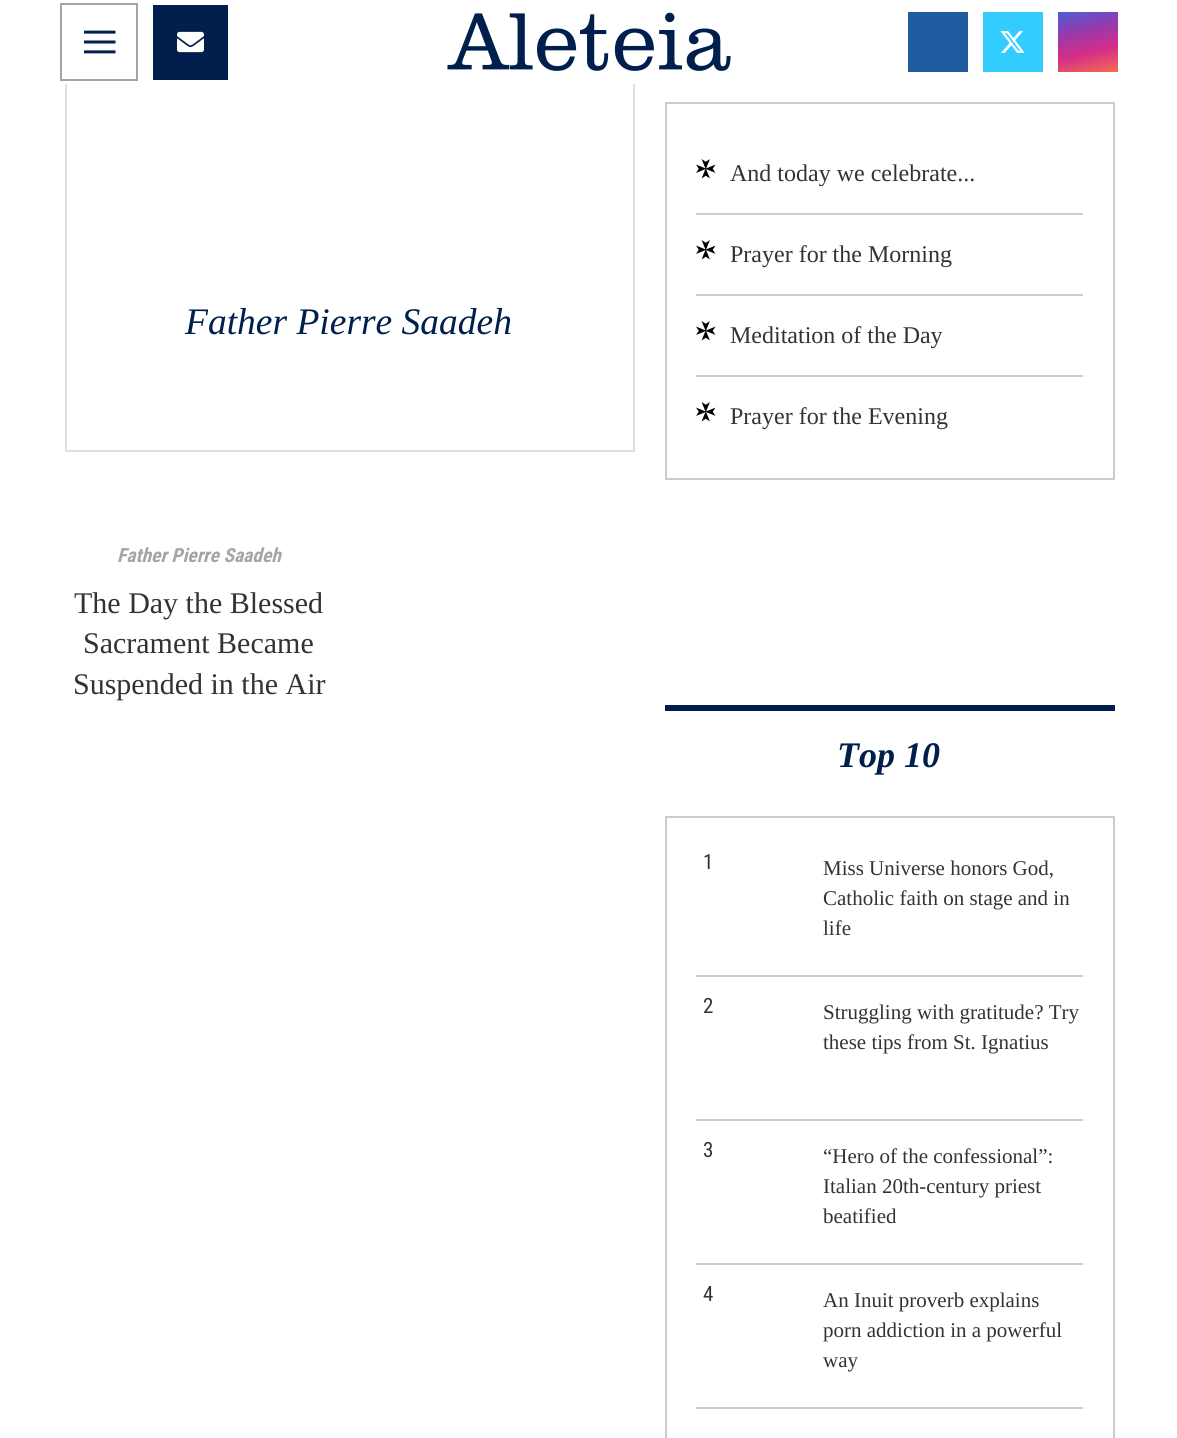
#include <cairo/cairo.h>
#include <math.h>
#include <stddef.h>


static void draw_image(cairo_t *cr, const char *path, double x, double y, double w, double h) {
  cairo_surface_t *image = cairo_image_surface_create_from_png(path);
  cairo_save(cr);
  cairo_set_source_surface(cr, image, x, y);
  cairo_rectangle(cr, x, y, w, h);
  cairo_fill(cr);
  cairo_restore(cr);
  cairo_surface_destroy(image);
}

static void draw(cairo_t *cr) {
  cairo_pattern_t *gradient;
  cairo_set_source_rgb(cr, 1, 1, 1);
  cairo_paint(cr);
  cairo_rectangle(cr, 66, 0, 568, 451);
  cairo_set_source_rgb(cr, 223 / 255.0, 223 / 255.0, 223 / 255.0);
  cairo_stroke(cr);
  cairo_set_source_rgb(cr, 1, 1, 1);
  cairo_rectangle(cr, 65, 0, 570, 84);
  cairo_fill(cr);
  cairo_rectangle(cr, 61, 4, 76, 76);
  cairo_set_source_rgb(cr, 165 / 255.0, 165 / 255.0, 165 / 255.0);
  cairo_stroke(cr);
  draw_image(cr, "images/1.png", 84, 30, 32, 24);
  cairo_set_source_rgb(cr, 0, 31 / 255.0, 77 / 255.0);
  cairo_rectangle(cr, 153, 5, 75, 75);
  cairo_fill(cr);
  draw_image(cr, "images/2.png", 177, 31, 27, 22);
  draw_image(cr, "images/3.png", 447, 12, 284, 59);
  cairo_set_source_rgb(cr, 34 / 255.0, 92 / 255.0, 160 / 255.0);
  cairo_rectangle(cr, 908, 12, 60, 60);
  cairo_fill(cr);
  cairo_set_source_rgb(cr, 51 / 255.0, 204 / 255.0, 1);
  cairo_rectangle(cr, 983, 12, 60, 60);
  cairo_fill(cr);
  draw_image(cr, "images/4.png", 1000, 31, 25, 22);
  gradient = cairo_pattern_create_linear(1079, 6.7, 1096, 77);
  cairo_pattern_add_color_stop_rgba(gradient, 0, 78 / 255.0, 95 / 255.0, 211 / 255.0, 1);
  cairo_pattern_add_color_stop_rgba(gradient, 0.31, 145 / 255.0, 59 / 255.0, 175 / 255.0, 1);
  cairo_pattern_add_color_stop_rgba(gradient, 0.65, 213 / 255.0, 45 / 255.0, 136 / 255.0, 1);
  cairo_pattern_add_color_stop_rgba(gradient, 1, 242 / 255.0, 109 / 255.0, 79 / 255.0, 1);
  cairo_set_source(cr, gradient);
  cairo_pattern_destroy(gradient);
  cairo_rectangle(cr, 1058, 12, 60, 60);
  cairo_fill(cr);
  cairo_rectangle(cr, 666, 103, 448, 376);
  cairo_set_source_rgb(cr, 204 / 255.0, 204 / 255.0, 204 / 255.0);
  cairo_stroke(cr);
  draw_image(cr, "images/5.png", 696, 159, 20, 20);
  cairo_rectangle(cr, 696, 213, 387, 2);
  cairo_fill(cr);
  draw_image(cr, "images/5.png", 696, 240, 20, 20);
  cairo_rectangle(cr, 696, 294, 387, 2);
  cairo_fill(cr);
  draw_image(cr, "images/5.png", 696, 321, 20, 20);
  cairo_rectangle(cr, 696, 375, 387, 2);
  cairo_fill(cr);
  draw_image(cr, "images/5.png", 696, 402, 20, 20);
  cairo_set_source_rgb(cr, 0, 31 / 255.0, 77 / 255.0);
  cairo_rectangle(cr, 665, 705, 450, 6);
  cairo_fill(cr);
  cairo_rectangle(cr, 666, 817, 448, 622);
  cairo_set_source_rgb(cr, 204 / 255.0, 204 / 255.0, 204 / 255.0);
  cairo_stroke(cr);
  cairo_rectangle(cr, 696, 975, 387, 2);
  cairo_fill(cr);
  cairo_rectangle(cr, 696, 1119, 387, 2);
  cairo_fill(cr);
  cairo_rectangle(cr, 696, 1263, 387, 2);
  cairo_fill(cr);
  cairo_rectangle(cr, 696, 1407, 387, 2);
  cairo_fill(cr);
  cairo_select_font_face(cr, "Liberation Serif", CAIRO_FONT_SLANT_ITALIC, CAIRO_FONT_WEIGHT_NORMAL);
  cairo_set_font_size(cr, 37.5);
  cairo_set_source_rgb(cr, 0, 31 / 255.0, 77 / 255.0);
  cairo_move_to(cr, 185, 334);
  cairo_show_text(cr, "Father Pierre Saadeh");
  cairo_select_font_face(cr, "Roboto Condensed", CAIRO_FONT_SLANT_ITALIC, CAIRO_FONT_WEIGHT_BOLD);
  cairo_set_font_size(cr, 19.5);
  cairo_set_source_rgb(cr, 165 / 255.0, 165 / 255.0, 165 / 255.0);
  cairo_move_to(cr, 117, 562);
  cairo_show_text(cr, "Father Pierre Saadeh");
  cairo_select_font_face(cr, "Liberation Serif", CAIRO_FONT_SLANT_NORMAL, CAIRO_FONT_WEIGHT_NORMAL);
  cairo_set_font_size(cr, 30);
  cairo_set_source_rgb(cr, 51 / 255.0, 51 / 255.0, 51 / 255.0);
  cairo_move_to(cr, 74, 613);
  cairo_show_text(cr, "The Day the Blessed");
  cairo_move_to(cr, 83, 653);
  cairo_show_text(cr, "Sacrament Became");
  cairo_move_to(cr, 73, 694);
  cairo_show_text(cr, "Suspended in the Air");
  cairo_set_font_size(cr, 24);
  cairo_move_to(cr, 730, 181);
  cairo_show_text(cr, "And today we celebrate...");
  cairo_move_to(cr, 730, 262);
  cairo_show_text(cr, "Prayer for the Morning");
  cairo_move_to(cr, 730, 343);
  cairo_show_text(cr, "Meditation of the Day");
  cairo_move_to(cr, 730, 424);
  cairo_show_text(cr, "Prayer for the Evening");
  cairo_select_font_face(cr, "Liberation Serif", CAIRO_FONT_SLANT_ITALIC, CAIRO_FONT_WEIGHT_BOLD);
  cairo_set_font_size(cr, 36);
  cairo_set_source_rgb(cr, 0, 31 / 255.0, 77 / 255.0);
  cairo_move_to(cr, 837, 767);
  cairo_show_text(cr, "Top 10");
  cairo_select_font_face(cr, "Roboto Condensed", CAIRO_FONT_SLANT_NORMAL, CAIRO_FONT_WEIGHT_NORMAL);
  cairo_set_font_size(cr, 21);
  cairo_set_source_rgb(cr, 51 / 255.0, 51 / 255.0, 51 / 255.0);
  cairo_move_to(cr, 703, 869);
  cairo_show_text(cr, "1");
  cairo_select_font_face(cr, "Liberation Serif", CAIRO_FONT_SLANT_NORMAL, CAIRO_FONT_WEIGHT_NORMAL);
  cairo_move_to(cr, 823, 875);
  cairo_show_text(cr, "Miss Universe honors God,");
  cairo_move_to(cr, 823, 905);
  cairo_show_text(cr, "Catholic faith on stage and in");
  cairo_move_to(cr, 823, 935);
  cairo_show_text(cr, "life");
  cairo_select_font_face(cr, "Roboto Condensed", CAIRO_FONT_SLANT_NORMAL, CAIRO_FONT_WEIGHT_NORMAL);
  cairo_move_to(cr, 703, 1013);
  cairo_show_text(cr, "2");
  cairo_select_font_face(cr, "Liberation Serif", CAIRO_FONT_SLANT_NORMAL, CAIRO_FONT_WEIGHT_NORMAL);
  cairo_move_to(cr, 823, 1019);
  cairo_show_text(cr, "Struggling with gratitude? Try");
  cairo_move_to(cr, 823, 1049);
  cairo_show_text(cr, "these tips from St. Ignatius");
  cairo_select_font_face(cr, "Roboto Condensed", CAIRO_FONT_SLANT_NORMAL, CAIRO_FONT_WEIGHT_NORMAL);
  cairo_move_to(cr, 703, 1157);
  cairo_show_text(cr, "3");
  cairo_select_font_face(cr, "Liberation Serif", CAIRO_FONT_SLANT_NORMAL, CAIRO_FONT_WEIGHT_NORMAL);
  cairo_move_to(cr, 823, 1163);
  cairo_show_text(cr, "“Hero of the confessional”:");
  cairo_move_to(cr, 823, 1193);
  cairo_show_text(cr, "Italian 20th-century priest");
  cairo_move_to(cr, 823, 1223);
  cairo_show_text(cr, "beatified");
  cairo_select_font_face(cr, "Roboto Condensed", CAIRO_FONT_SLANT_NORMAL, CAIRO_FONT_WEIGHT_NORMAL);
  cairo_move_to(cr, 703, 1301);
  cairo_show_text(cr, "4");
  cairo_select_font_face(cr, "Liberation Serif", CAIRO_FONT_SLANT_NORMAL, CAIRO_FONT_WEIGHT_NORMAL);
  cairo_move_to(cr, 823, 1307);
  cairo_show_text(cr, "An Inuit proverb explains");
  cairo_move_to(cr, 823, 1337);
  cairo_show_text(cr, "porn addiction in a powerful");
  cairo_move_to(cr, 823, 1367);
  cairo_show_text(cr, "way");
}

int main(void) {
  cairo_surface_t *surface = cairo_image_surface_create(CAIRO_FORMAT_RGB24, 1177, 1438);
  cairo_t *cr = cairo_create(surface);
  cairo_font_options_t *options = cairo_font_options_create();
  cairo_font_options_set_hint_metrics(options, CAIRO_HINT_METRICS_OFF);
  cairo_font_options_set_hint_style(options, CAIRO_HINT_STYLE_NONE);
  cairo_set_font_options(cr, options);
  cairo_set_miter_limit(cr, 4);
  draw(cr);
  cairo_surface_write_to_png(surface, "out.png");
  cairo_font_options_destroy(options);
  cairo_destroy(cr);
  cairo_surface_destroy(surface);
  return 0;
}
